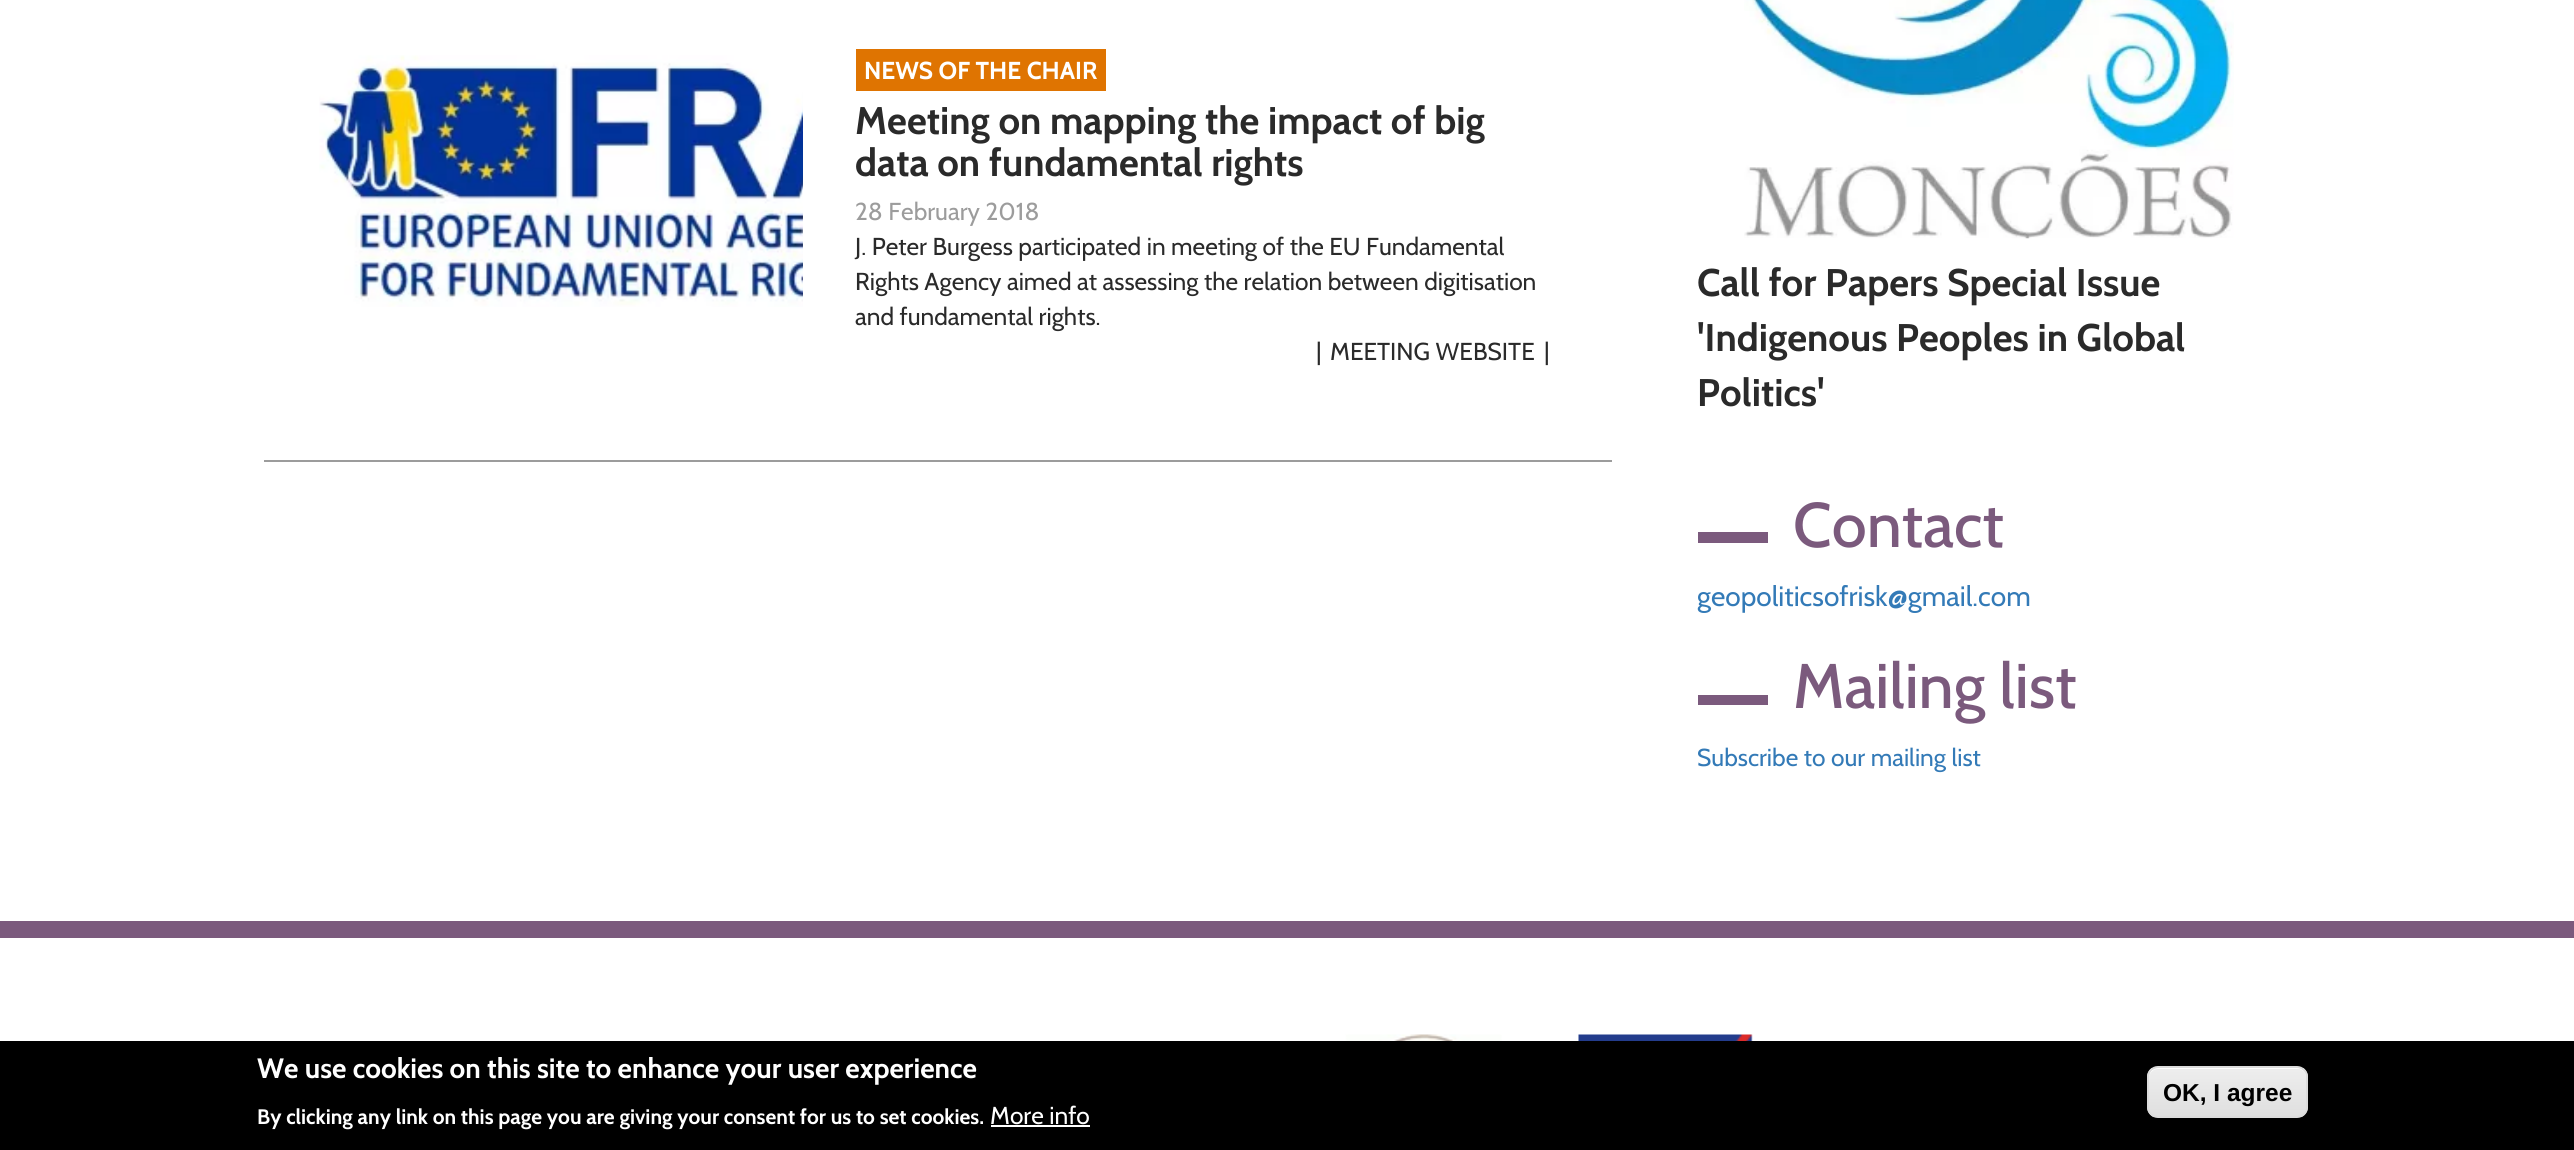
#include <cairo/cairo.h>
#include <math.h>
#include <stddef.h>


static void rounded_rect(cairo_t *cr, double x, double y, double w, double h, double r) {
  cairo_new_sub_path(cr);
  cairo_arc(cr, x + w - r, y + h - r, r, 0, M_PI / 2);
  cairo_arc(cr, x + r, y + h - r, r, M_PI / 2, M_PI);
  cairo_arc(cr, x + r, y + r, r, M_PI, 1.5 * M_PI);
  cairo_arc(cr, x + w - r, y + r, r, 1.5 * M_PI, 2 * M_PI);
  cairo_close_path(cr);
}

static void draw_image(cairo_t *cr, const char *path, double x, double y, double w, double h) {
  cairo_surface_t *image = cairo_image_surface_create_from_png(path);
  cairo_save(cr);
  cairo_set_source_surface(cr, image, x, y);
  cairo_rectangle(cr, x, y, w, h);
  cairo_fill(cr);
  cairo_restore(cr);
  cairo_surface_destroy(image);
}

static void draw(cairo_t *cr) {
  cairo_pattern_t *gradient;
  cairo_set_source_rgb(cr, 1, 1, 1);
  cairo_paint(cr);
  cairo_set_source_rgb(cr, 156 / 255.0, 156 / 255.0, 156 / 255.0);
  cairo_rectangle(cr, 264, 460, 1348, 2);
  cairo_fill(cr);
  draw_image(cr, "images/1.png", 319, 55, 484, 252);
  cairo_set_source_rgb(cr, 223 / 255.0, 116 / 255.0, 1 / 255.0);
  cairo_rectangle(cr, 856, 49, 250, 42);
  cairo_fill(cr);
  draw_image(cr, "images/2.png", 1744, 0, 490, 239);
  cairo_set_source_rgb(cr, 123 / 255.0, 90 / 255.0, 125 / 255.0);
  cairo_rectangle(cr, 1698, 532, 70, 11);
  cairo_fill(cr);
  cairo_rectangle(cr, 1698, 695, 70, 10);
  cairo_fill(cr);
  cairo_rectangle(cr, 0, 921, 2574, 17);
  cairo_fill(cr);
  draw_image(cr, "images/3.png", 1345, 1034, 157, 7);
  draw_image(cr, "images/4.png", 1578, 1034, 175, 7);
  cairo_set_source_rgb(cr, 0, 0, 0);
  cairo_rectangle(cr, 0, 1041, 2574, 109);
  cairo_fill(cr);
  cairo_set_source_rgb(cr, 1, 1, 1);
  cairo_rectangle(cr, 991, 1125, 99, 2);
  cairo_fill(cr);
  cairo_save(cr);
  rounded_rect(cr, 2147, 1066, 161, 52, 11);
  cairo_clip(cr);
  gradient = cairo_pattern_create_linear(2228, 1068, 2228, 1117);
  cairo_pattern_add_color_stop_rgba(gradient, 0.05, 237 / 255.0, 237 / 255.0, 237 / 255.0, 1);
  cairo_pattern_add_color_stop_rgba(gradient, 1, 223 / 255.0, 223 / 255.0, 223 / 255.0, 1);
  cairo_set_source(cr, gradient);
  cairo_pattern_destroy(gradient);
  cairo_rectangle(cr, 2147, 1068, 161, 49);
  cairo_fill(cr);
  cairo_restore(cr);
  cairo_new_path(cr);
  cairo_move_to(cr, 2158, 1069);
  cairo_line_to(cr, 2298, 1069);
  cairo_curve_to(cr, 2303, 1069, 2306, 1073, 2306, 1078);
  cairo_line_to(cr, 2306, 1110);
  cairo_line_to(cr, 2305, 1113);
  cairo_curve_to(cr, 2306, 1112, 2307, 1110, 2307, 1108);
  cairo_line_to(cr, 2307, 1077);
  cairo_curve_to(cr, 2307, 1072, 2303, 1068, 2298, 1068);
  cairo_line_to(cr, 2158, 1068);
  cairo_curve_to(cr, 2153, 1068, 2149, 1072, 2149, 1077);
  cairo_line_to(cr, 2149, 1078);
  cairo_curve_to(cr, 2149, 1073, 2153, 1069, 2158, 1069);
  cairo_close_path(cr);
  cairo_fill(cr);
  rounded_rect(cr, 2148, 1067, 159, 50, 10);
  cairo_set_source_rgb(cr, 220 / 255.0, 220 / 255.0, 220 / 255.0);
  cairo_stroke(cr);
  cairo_select_font_face(cr, "Cabin", CAIRO_FONT_SLANT_NORMAL, CAIRO_FONT_WEIGHT_BOLD);
  cairo_set_font_size(cr, 24.5);
  cairo_set_source_rgb(cr, 1, 1, 1);
  cairo_move_to(cr, 864, 79);
  cairo_show_text(cr, "NEWS OF THE CHAIR");
  cairo_set_font_size(cr, 38.5);
  cairo_set_source_rgb(cr, 42 / 255.0, 42 / 255.0, 42 / 255.0);
  cairo_move_to(cr, 855, 134);
  cairo_show_text(cr, "Meeting on mapping the impact of big");
  cairo_move_to(cr, 855, 176);
  cairo_show_text(cr, "data on fundamental rights");
  cairo_select_font_face(cr, "Cabin", CAIRO_FONT_SLANT_NORMAL, CAIRO_FONT_WEIGHT_NORMAL);
  cairo_set_font_size(cr, 24.5);
  cairo_set_source_rgb(cr, 156 / 255.0, 156 / 255.0, 156 / 255.0);
  cairo_move_to(cr, 855, 220);
  cairo_show_text(cr, "28 February 2018");
  cairo_set_source_rgb(cr, 42 / 255.0, 42 / 255.0, 42 / 255.0);
  cairo_move_to(cr, 855, 255);
  cairo_show_text(cr, "J. Peter Burgess participated in meeting of the EU Fundamental");
  cairo_move_to(cr, 855, 290);
  cairo_show_text(cr, "Rights Agency aimed at assessing the relation between digitisation");
  cairo_move_to(cr, 855, 325);
  cairo_show_text(cr, "and fundamental rights.");
  cairo_move_to(cr, 1316, 360);
  cairo_show_text(cr, "|");
  cairo_move_to(cr, 1330, 360);
  cairo_show_text(cr, "MEETING WEBSITE");
  cairo_move_to(cr, 1544, 360);
  cairo_show_text(cr, "|");
  cairo_select_font_face(cr, "Cabin", CAIRO_FONT_SLANT_NORMAL, CAIRO_FONT_WEIGHT_BOLD);
  cairo_set_font_size(cr, 38.5);
  cairo_move_to(cr, 1697, 296);
  cairo_show_text(cr, "Call for Papers Special Issue");
  cairo_move_to(cr, 1697, 351);
  cairo_show_text(cr, "'Indigenous Peoples in Global");
  cairo_move_to(cr, 1697, 406);
  cairo_show_text(cr, "Politics'");
  cairo_select_font_face(cr, "Cabin Medium", CAIRO_FONT_SLANT_NORMAL, CAIRO_FONT_WEIGHT_NORMAL);
  cairo_set_font_size(cr, 63);
  cairo_set_source_rgb(cr, 123 / 255.0, 90 / 255.0, 125 / 255.0);
  cairo_move_to(cr, 1793, 547);
  cairo_show_text(cr, "Contact");
  cairo_select_font_face(cr, "Cabin", CAIRO_FONT_SLANT_NORMAL, CAIRO_FONT_WEIGHT_NORMAL);
  cairo_set_font_size(cr, 28);
  cairo_set_source_rgb(cr, 51 / 255.0, 122 / 255.0, 183 / 255.0);
  cairo_move_to(cr, 1697, 606);
  cairo_show_text(cr, "geopoliticsofrisk@gmail.com");
  cairo_select_font_face(cr, "Cabin Medium", CAIRO_FONT_SLANT_NORMAL, CAIRO_FONT_WEIGHT_NORMAL);
  cairo_set_font_size(cr, 63);
  cairo_set_source_rgb(cr, 123 / 255.0, 90 / 255.0, 125 / 255.0);
  cairo_move_to(cr, 1793, 708);
  cairo_show_text(cr, "Mailing list");
  cairo_select_font_face(cr, "Cabin", CAIRO_FONT_SLANT_NORMAL, CAIRO_FONT_WEIGHT_NORMAL);
  cairo_set_font_size(cr, 24.5);
  cairo_set_source_rgb(cr, 51 / 255.0, 122 / 255.0, 183 / 255.0);
  cairo_move_to(cr, 1697, 766);
  cairo_show_text(cr, "Subscribe to our mailing list");
  cairo_select_font_face(cr, "Cabin", CAIRO_FONT_SLANT_NORMAL, CAIRO_FONT_WEIGHT_BOLD);
  cairo_set_font_size(cr, 28);
  cairo_set_source_rgb(cr, 1, 1, 1);
  cairo_move_to(cr, 257, 1078);
  cairo_show_text(cr, "We use cookies on this site to enhance your user experience");
  cairo_set_font_size(cr, 21);
  cairo_move_to(cr, 257, 1124);
  cairo_show_text(cr, "By clicking any link on this page you are giving your consent for us to set cookies.");
  cairo_select_font_face(cr, "Cabin", CAIRO_FONT_SLANT_NORMAL, CAIRO_FONT_WEIGHT_NORMAL);
  cairo_set_font_size(cr, 24.5);
  cairo_move_to(cr, 990, 1124);
  cairo_show_text(cr, "More info");
  cairo_select_font_face(cr, "Liberation Sans", CAIRO_FONT_SLANT_NORMAL, CAIRO_FONT_WEIGHT_BOLD);
  cairo_set_source_rgb(cr, 0, 0, 0);
  cairo_move_to(cr, 2163, 1101);
  cairo_show_text(cr, "OK, I agree");
}

int main(void) {
  cairo_surface_t *surface = cairo_image_surface_create(CAIRO_FORMAT_RGB24, 2574, 1150);
  cairo_t *cr = cairo_create(surface);
  cairo_font_options_t *options = cairo_font_options_create();
  cairo_font_options_set_hint_metrics(options, CAIRO_HINT_METRICS_OFF);
  cairo_font_options_set_hint_style(options, CAIRO_HINT_STYLE_NONE);
  cairo_set_font_options(cr, options);
  cairo_set_miter_limit(cr, 4);
  draw(cr);
  cairo_surface_write_to_png(surface, "out.png");
  cairo_font_options_destroy(options);
  cairo_destroy(cr);
  cairo_surface_destroy(surface);
  return 0;
}
